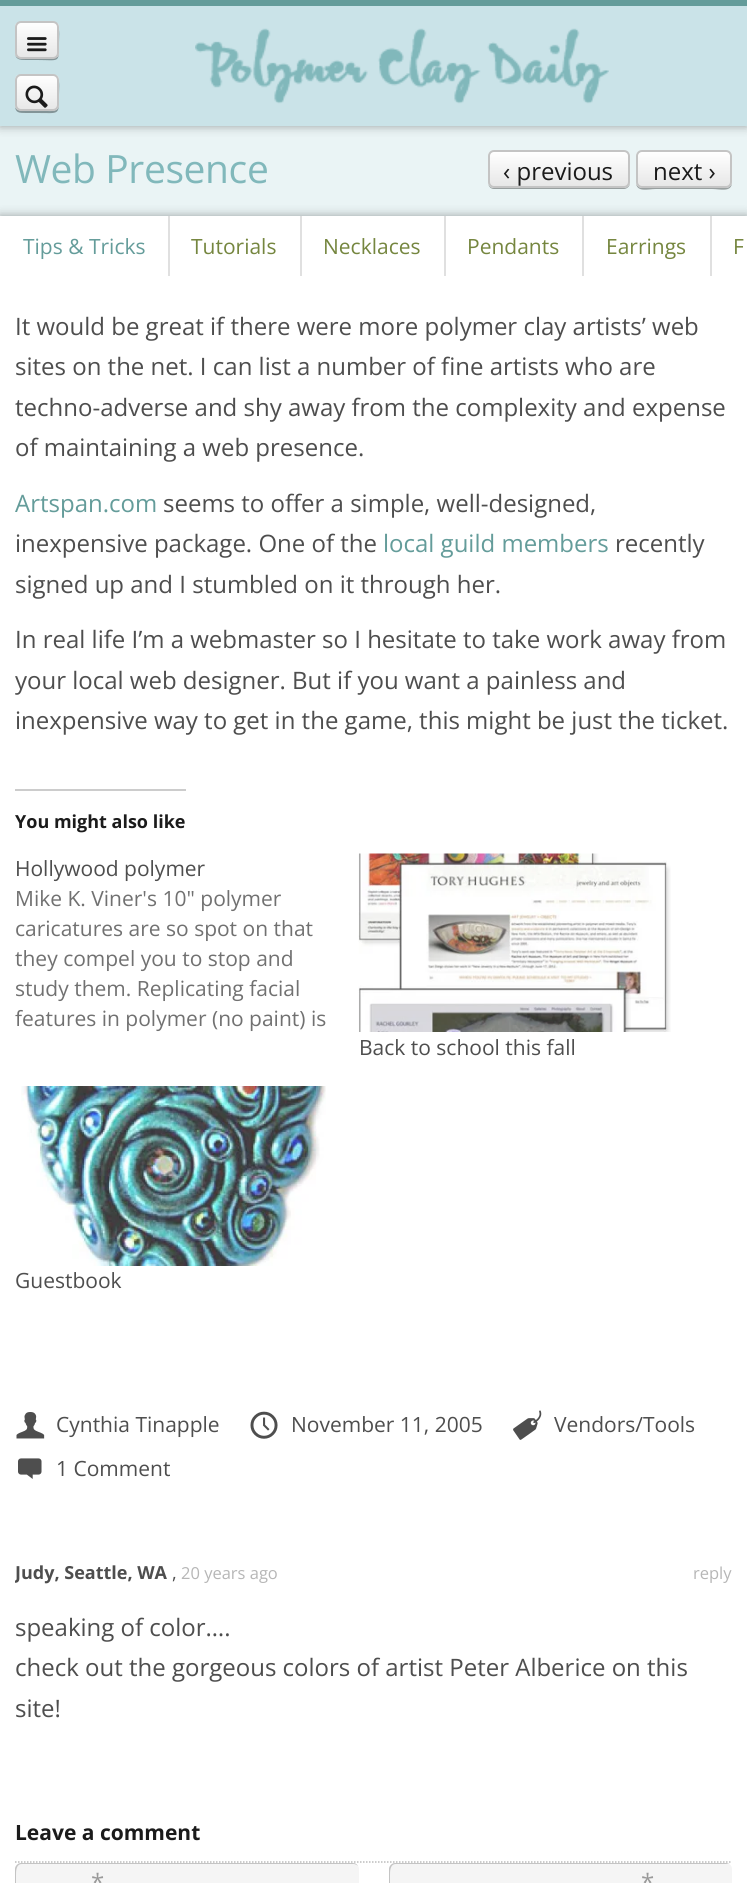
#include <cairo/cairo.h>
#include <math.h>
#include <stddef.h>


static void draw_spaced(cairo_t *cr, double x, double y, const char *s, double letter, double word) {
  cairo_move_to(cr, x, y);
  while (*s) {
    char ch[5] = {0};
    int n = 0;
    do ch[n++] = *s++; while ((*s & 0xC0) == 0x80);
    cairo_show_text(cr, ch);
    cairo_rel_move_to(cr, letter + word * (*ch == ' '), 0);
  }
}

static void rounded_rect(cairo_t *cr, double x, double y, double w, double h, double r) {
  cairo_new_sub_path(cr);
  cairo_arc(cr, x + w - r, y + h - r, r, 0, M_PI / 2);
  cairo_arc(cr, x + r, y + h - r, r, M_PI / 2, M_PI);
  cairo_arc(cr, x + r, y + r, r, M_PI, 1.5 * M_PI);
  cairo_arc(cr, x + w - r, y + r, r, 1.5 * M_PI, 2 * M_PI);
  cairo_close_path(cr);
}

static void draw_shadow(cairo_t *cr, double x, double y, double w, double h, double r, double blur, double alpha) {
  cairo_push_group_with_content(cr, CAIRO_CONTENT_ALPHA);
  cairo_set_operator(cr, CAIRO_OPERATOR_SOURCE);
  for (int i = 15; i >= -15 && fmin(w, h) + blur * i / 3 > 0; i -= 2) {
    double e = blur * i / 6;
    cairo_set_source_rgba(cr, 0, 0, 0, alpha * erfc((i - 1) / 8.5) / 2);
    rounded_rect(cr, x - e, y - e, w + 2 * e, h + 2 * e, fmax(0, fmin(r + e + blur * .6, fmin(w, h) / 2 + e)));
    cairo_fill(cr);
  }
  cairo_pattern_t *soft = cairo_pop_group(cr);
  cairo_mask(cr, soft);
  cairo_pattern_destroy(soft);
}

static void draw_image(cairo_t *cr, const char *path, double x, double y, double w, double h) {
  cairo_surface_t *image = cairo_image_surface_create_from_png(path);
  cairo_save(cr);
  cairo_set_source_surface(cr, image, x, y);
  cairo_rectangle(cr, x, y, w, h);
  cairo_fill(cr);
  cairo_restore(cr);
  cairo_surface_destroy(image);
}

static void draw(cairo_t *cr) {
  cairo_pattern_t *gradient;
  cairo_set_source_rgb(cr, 234 / 255.0, 244 / 255.0, 245 / 255.0);
  cairo_paint(cr);
  cairo_set_source_rgb(cr, 0, 0, 0);
  draw_shadow(cr, 0, 6, 747, 120, 0, 5, 0.35);
  cairo_set_source_rgb(cr, 202 / 255.0, 227 / 255.0, 232 / 255.0);
  cairo_rectangle(cr, 0, 6, 747, 120);
  cairo_fill(cr);
  cairo_set_source_rgb(cr, 131 / 255.0, 148 / 255.0, 151 / 255.0);
  cairo_new_path(cr);
  cairo_move_to(cr, 15, 52);
  cairo_curve_to(cr, 15, 60, 20, 60, 26, 60);
  cairo_line_to(cr, 37, 60);
  cairo_curve_to(cr, 60, 60, 59, 64, 59, 42);
  cairo_curve_to(cr, 59, 38, 60, 30, 58, 27);
  cairo_line_to(cr, 58, 48);
  cairo_curve_to(cr, 58, 61, 54, 58, 42, 58);
  cairo_line_to(cr, 26, 58);
  cairo_curve_to(cr, 22, 58, 15, 59, 15, 52);
  cairo_close_path(cr);
  cairo_fill(cr);
  cairo_save(cr);
  rounded_rect(cr, 15, 21, 44, 38, 6);
  cairo_clip(cr);
  gradient = cairo_pattern_create_linear(37, 22, 37, 57);
  cairo_pattern_add_color_stop_rgba(gradient, 0, 1, 1, 1, 1);
  cairo_pattern_add_color_stop_rgba(gradient, 1, 231 / 255.0, 231 / 255.0, 231 / 255.0, 1);
  cairo_set_source(cr, gradient);
  cairo_pattern_destroy(gradient);
  cairo_rectangle(cr, 15, 23, 44, 34);
  cairo_fill(cr);
  cairo_restore(cr);
  rounded_rect(cr, 16, 22, 42, 36, 5);
  cairo_set_source_rgb(cr, 196 / 255.0, 196 / 255.0, 196 / 255.0);
  cairo_stroke(cr);
  draw_image(cr, "images/1.png", 27, 37, 20, 15);
  cairo_set_source_rgb(cr, 131 / 255.0, 148 / 255.0, 151 / 255.0);
  cairo_new_path(cr);
  cairo_move_to(cr, 15, 105);
  cairo_curve_to(cr, 15, 113, 19, 113, 26, 113);
  cairo_line_to(cr, 37, 113);
  cairo_curve_to(cr, 60, 113, 59, 116, 59, 94);
  cairo_curve_to(cr, 59, 90, 60, 82, 58, 78);
  cairo_line_to(cr, 58, 96);
  cairo_curve_to(cr, 58, 113, 58, 111, 42, 111);
  cairo_line_to(cr, 26, 111);
  cairo_curve_to(cr, 22, 111, 15, 111, 15, 105);
  cairo_close_path(cr);
  cairo_fill(cr);
  cairo_save(cr);
  rounded_rect(cr, 15, 74, 44, 37, 6);
  cairo_clip(cr);
  gradient = cairo_pattern_create_linear(37, 75, 37, 110);
  cairo_pattern_add_color_stop_rgba(gradient, 0, 1, 1, 1, 1);
  cairo_pattern_add_color_stop_rgba(gradient, 1, 231 / 255.0, 231 / 255.0, 231 / 255.0, 1);
  cairo_set_source(cr, gradient);
  cairo_pattern_destroy(gradient);
  cairo_rectangle(cr, 15, 75, 44, 35);
  cairo_fill(cr);
  cairo_restore(cr);
  rounded_rect(cr, 16, 75, 42, 35, 5);
  cairo_set_source_rgb(cr, 196 / 255.0, 196 / 255.0, 196 / 255.0);
  cairo_stroke(cr);
  draw_image(cr, "images/2.png", 25, 85, 23, 23);
  draw_image(cr, "images/3.png", 195, 28, 414, 76);
  cairo_set_source_rgb(cr, 100 / 255.0, 156 / 255.0, 154 / 255.0);
  cairo_rectangle(cr, 0, 0, 747, 6);
  cairo_fill(cr);
  cairo_set_source_rgb(cr, 152 / 255.0, 159 / 255.0, 159 / 255.0);
  cairo_new_path(cr);
  cairo_move_to(cr, 488, 184);
  cairo_curve_to(cr, 489, 187, 491, 189, 494, 189);
  cairo_line_to(cr, 624, 189);
  cairo_curve_to(cr, 627, 189, 630, 186, 630, 183);
  cairo_line_to(cr, 630, 182);
  cairo_curve_to(cr, 630, 185, 627, 188, 624, 188);
  cairo_line_to(cr, 494, 188);
  cairo_curve_to(cr, 491, 188, 489, 186, 488, 184);
  cairo_close_path(cr);
  cairo_fill(cr);
  cairo_save(cr);
  rounded_rect(cr, 488, 150, 142, 38, 6);
  cairo_clip(cr);
  gradient = cairo_pattern_create_linear(559, 152, 559, 186);
  cairo_pattern_add_color_stop_rgba(gradient, 0, 1, 1, 1, 1);
  cairo_pattern_add_color_stop_rgba(gradient, 1, 231 / 255.0, 231 / 255.0, 231 / 255.0, 1);
  cairo_set_source(cr, gradient);
  cairo_pattern_destroy(gradient);
  cairo_rectangle(cr, 488, 152, 142, 34);
  cairo_fill(cr);
  cairo_restore(cr);
  cairo_set_source_rgba(cr, 1, 1, 1, 0.85);
  cairo_new_path(cr);
  cairo_move_to(cr, 494, 153);
  cairo_line_to(cr, 624, 153);
  cairo_curve_to(cr, 630, 153, 628, 164, 628, 166);
  cairo_line_to(cr, 628, 184);
  cairo_curve_to(cr, 629, 183, 629, 182, 629, 181);
  cairo_line_to(cr, 629, 157);
  cairo_curve_to(cr, 629, 154, 627, 152, 624, 152);
  cairo_line_to(cr, 494, 152);
  cairo_curve_to(cr, 491, 152, 489, 154, 489, 157);
  cairo_line_to(cr, 489, 158);
  cairo_curve_to(cr, 489, 155, 491, 153, 494, 153);
  cairo_close_path(cr);
  cairo_fill(cr);
  rounded_rect(cr, 489, 151, 140, 36, 5);
  cairo_set_source_rgb(cr, 196 / 255.0, 196 / 255.0, 196 / 255.0);
  cairo_stroke(cr);
  cairo_set_source_rgb(cr, 152 / 255.0, 159 / 255.0, 159 / 255.0);
  cairo_new_path(cr);
  cairo_move_to(cr, 636, 182);
  cairo_curve_to(cr, 636, 193, 648, 189, 656, 189);
  cairo_line_to(cr, 712, 189);
  cairo_curve_to(cr, 720, 189, 732, 193, 732, 182);
  cairo_curve_to(cr, 732, 185, 729, 188, 726, 188);
  cairo_line_to(cr, 642, 188);
  cairo_curve_to(cr, 639, 188, 636, 185, 636, 182);
  cairo_close_path(cr);
  cairo_fill(cr);
  cairo_save(cr);
  rounded_rect(cr, 636, 150, 96, 38, 6);
  cairo_clip(cr);
  gradient = cairo_pattern_create_linear(684, 152, 684, 186);
  cairo_pattern_add_color_stop_rgba(gradient, 0, 1, 1, 1, 1);
  cairo_pattern_add_color_stop_rgba(gradient, 1, 231 / 255.0, 231 / 255.0, 231 / 255.0, 1);
  cairo_set_source(cr, gradient);
  cairo_pattern_destroy(gradient);
  cairo_rectangle(cr, 636, 152, 96, 34);
  cairo_fill(cr);
  cairo_restore(cr);
  cairo_set_source_rgba(cr, 1, 1, 1, 0.85);
  cairo_new_path(cr);
  cairo_move_to(cr, 642, 153);
  cairo_line_to(cr, 726, 153);
  cairo_curve_to(cr, 732, 153, 730, 163, 730, 166);
  cairo_line_to(cr, 730, 184);
  cairo_curve_to(cr, 731, 183, 731, 182, 731, 181);
  cairo_line_to(cr, 731, 157);
  cairo_curve_to(cr, 731, 154, 729, 152, 726, 152);
  cairo_line_to(cr, 643, 152);
  cairo_curve_to(cr, 640, 152, 638, 154, 638, 157);
  cairo_line_to(cr, 638, 158);
  cairo_curve_to(cr, 638, 155, 640, 153, 642, 153);
  cairo_close_path(cr);
  cairo_fill(cr);
  rounded_rect(cr, 637, 151, 94, 36, 5);
  cairo_set_source_rgb(cr, 196 / 255.0, 196 / 255.0, 196 / 255.0);
  cairo_stroke(cr);
  cairo_set_source_rgb(cr, 0, 0, 0);
  draw_shadow(cr, 0, 216, 747, 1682, 0, 5, 0.35);
  cairo_set_source_rgb(cr, 1, 1, 1);
  cairo_rectangle(cr, 0, 216, 747, 1667);
  cairo_fill(cr);
  cairo_set_source_rgb(cr, 224 / 255.0, 224 / 255.0, 224 / 255.0);
  cairo_rectangle(cr, 168, 216, 2, 60);
  cairo_fill(cr);
  cairo_rectangle(cr, 300, 216, 2, 60);
  cairo_fill(cr);
  cairo_rectangle(cr, 444, 216, 2, 60);
  cairo_fill(cr);
  cairo_rectangle(cr, 582, 216, 2, 60);
  cairo_fill(cr);
  cairo_rectangle(cr, 710, 216, 2, 60);
  cairo_fill(cr);
  cairo_set_source_rgb(cr, 204 / 255.0, 204 / 255.0, 204 / 255.0);
  cairo_rectangle(cr, 15, 789, 171, 2);
  cairo_fill(cr);
  draw_image(cr, "images/4.png", 358, 853, 313, 179);
  draw_image(cr, "images/5.png", 21, 1086, 305, 180);
  draw_image(cr, "images/6.png", 16, 1412, 29, 27);
  draw_image(cr, "images/7.png", 250, 1411, 28, 28);
  draw_image(cr, "images/8.png", 513, 1410, 29, 30);
  draw_image(cr, "images/9.png", 18, 1458, 24, 21);
  cairo_new_path(cr);
  cairo_move_to(cr, 15, 1862);
  cairo_line_to(cr, 732, 1862);
  cairo_set_source_rgb(cr, 187 / 255.0, 187 / 255.0, 187 / 255.0);
  cairo_set_line_width(cr, 1.5);
  cairo_set_dash(cr, (double[]){1.5, 1.5}, 2, 0);
  cairo_stroke(cr);
  cairo_set_source_rgb(cr, 245 / 255.0, 245 / 255.0, 245 / 255.0);
  rounded_rect(cr, 15, 1863, 344, 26, 6);
  cairo_fill(cr);
  cairo_set_source_rgb(cr, 196 / 255.0, 196 / 255.0, 196 / 255.0);
  cairo_new_path(cr);
  cairo_move_to(cr, 22, 1864);
  cairo_line_to(cr, 354, 1864);
  cairo_curve_to(cr, 355, 1864, 357, 1865, 358, 1866);
  cairo_curve_to(cr, 357, 1864, 355, 1863, 353, 1863);
  cairo_line_to(cr, 21, 1863);
  cairo_curve_to(cr, 18, 1863, 15, 1866, 15, 1869);
  cairo_line_to(cr, 15, 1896);
  cairo_curve_to(cr, 15, 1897, 16, 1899, 16, 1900);
  cairo_line_to(cr, 16, 1875);
  cairo_curve_to(cr, 16, 1871, 16, 1864, 22, 1864);
  cairo_close_path(cr);
  cairo_fill(cr);
  cairo_set_source_rgb(cr, 245 / 255.0, 245 / 255.0, 245 / 255.0);
  rounded_rect(cr, 389, 1863, 343, 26, 6);
  cairo_fill(cr);
  cairo_set_source_rgb(cr, 196 / 255.0, 196 / 255.0, 196 / 255.0);
  cairo_new_path(cr);
  cairo_move_to(cr, 396, 1864);
  cairo_line_to(cr, 730, 1864);
  cairo_curve_to(cr, 729, 1864, 727, 1863, 726, 1863);
  cairo_line_to(cr, 395, 1863);
  cairo_curve_to(cr, 392, 1863, 389, 1866, 389, 1869);
  cairo_line_to(cr, 389, 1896);
  cairo_curve_to(cr, 389, 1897, 390, 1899, 390, 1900);
  cairo_line_to(cr, 390, 1875);
  cairo_curve_to(cr, 390, 1871, 390, 1864, 396, 1864);
  cairo_close_path(cr);
  cairo_fill(cr);
  cairo_select_font_face(cr, "Open Sans", CAIRO_FONT_SLANT_NORMAL, CAIRO_FONT_WEIGHT_NORMAL);
  cairo_set_font_size(cr, 39);
  cairo_set_source_rgb(cr, 129 / 255.0, 184 / 255.0, 187 / 255.0);
  draw_spaced(cr, 15, 183, "Web Presence", -0.4, 0);
  cairo_set_font_size(cr, 24);
  cairo_set_source_rgb(cr, 27 / 255.0, 27 / 255.0, 27 / 255.0);
  cairo_move_to(cr, 503, 180);
  cairo_show_text(cr, "‹ previous");
  cairo_move_to(cr, 653, 180);
  cairo_show_text(cr, "next ›");
  cairo_set_font_size(cr, 21);
  cairo_set_source_rgb(cr, 100 / 255.0, 156 / 255.0, 154 / 255.0);
  cairo_move_to(cr, 23, 254);
  cairo_show_text(cr, "Tips & Tricks");
  cairo_set_source_rgb(cr, 117 / 255.0, 134 / 255.0, 63 / 255.0);
  cairo_move_to(cr, 191, 254);
  cairo_show_text(cr, "Tutorials");
  cairo_move_to(cr, 323, 254);
  cairo_show_text(cr, "Necklaces");
  cairo_move_to(cr, 467, 254);
  cairo_show_text(cr, "Pendants");
  cairo_move_to(cr, 606, 254);
  cairo_show_text(cr, "Earrings");
  cairo_move_to(cr, 733, 254);
  cairo_show_text(cr, "F");
  cairo_set_font_size(cr, 24);
  cairo_set_source_rgb(cr, 78 / 255.0, 78 / 255.0, 78 / 255.0);
  cairo_move_to(cr, 15, 335);
  cairo_show_text(cr, "It would be great if there were more polymer clay artists’ web");
  cairo_move_to(cr, 15, 375);
  cairo_show_text(cr, "sites on the net. I can list a number of fine artists who are");
  cairo_move_to(cr, 15, 416);
  cairo_show_text(cr, "techno-adverse and shy away from the complexity and expense");
  cairo_move_to(cr, 15, 456);
  cairo_show_text(cr, "of maintaining a web presence.");
  cairo_set_source_rgb(cr, 100 / 255.0, 156 / 255.0, 154 / 255.0);
  cairo_move_to(cr, 15, 512);
  cairo_show_text(cr, "Artspan.com");
  cairo_set_source_rgb(cr, 78 / 255.0, 78 / 255.0, 78 / 255.0);
  cairo_move_to(cr, 163, 512);
  cairo_show_text(cr, "seems to offer a simple, well-designed,");
  cairo_move_to(cr, 15, 552);
  cairo_show_text(cr, "inexpensive package. One of the");
  cairo_set_source_rgb(cr, 100 / 255.0, 156 / 255.0, 154 / 255.0);
  cairo_move_to(cr, 383, 552);
  cairo_show_text(cr, "local guild members");
  cairo_set_source_rgb(cr, 78 / 255.0, 78 / 255.0, 78 / 255.0);
  cairo_move_to(cr, 615, 552);
  cairo_show_text(cr, "recently");
  cairo_move_to(cr, 15, 593);
  cairo_show_text(cr, "signed up and I stumbled on it through her.");
  cairo_move_to(cr, 15, 648);
  cairo_show_text(cr, "In real life I’m a webmaster so I hesitate to take work away from");
  cairo_move_to(cr, 15, 689);
  cairo_show_text(cr, "your local web designer. But if you want a painless and");
  cairo_move_to(cr, 15, 729);
  cairo_show_text(cr, "inexpensive way to get in the game, this might be just the ticket.");
  cairo_select_font_face(cr, "Open Sans", CAIRO_FONT_SLANT_NORMAL, CAIRO_FONT_WEIGHT_BOLD);
  cairo_set_font_size(cr, 18);
  cairo_set_source_rgb(cr, 27 / 255.0, 27 / 255.0, 27 / 255.0);
  cairo_move_to(cr, 15, 828);
  cairo_show_text(cr, "You might also like");
  cairo_select_font_face(cr, "Open Sans", CAIRO_FONT_SLANT_NORMAL, CAIRO_FONT_WEIGHT_NORMAL);
  cairo_set_font_size(cr, 21);
  cairo_set_source_rgb(cr, 78 / 255.0, 78 / 255.0, 78 / 255.0);
  cairo_move_to(cr, 15, 876);
  cairo_show_text(cr, "Hollywood polymer");
  cairo_set_source_rgb(cr, 113 / 255.0, 113 / 255.0, 113 / 255.0);
  cairo_move_to(cr, 15, 906);
  cairo_show_text(cr, "Mike K. Viner's 10\" polymer");
  cairo_move_to(cr, 15, 936);
  cairo_show_text(cr, "caricatures are so spot on that");
  cairo_move_to(cr, 15, 966);
  cairo_show_text(cr, "they compel you to stop and");
  cairo_move_to(cr, 15, 996);
  cairo_show_text(cr, "study them. Replicating facial");
  cairo_move_to(cr, 15, 1026);
  cairo_show_text(cr, "features in polymer (no paint) is");
  cairo_set_source_rgb(cr, 78 / 255.0, 78 / 255.0, 78 / 255.0);
  cairo_move_to(cr, 359, 1055);
  cairo_show_text(cr, "Back to school this fall");
  cairo_move_to(cr, 15, 1288);
  cairo_show_text(cr, "Guestbook");
  cairo_move_to(cr, 56, 1432);
  cairo_show_text(cr, "Cynthia Tinapple");
  cairo_move_to(cr, 291, 1432);
  cairo_show_text(cr, "November 11, 2005");
  cairo_move_to(cr, 554, 1432);
  cairo_show_text(cr, "Vendors/Tools");
  cairo_move_to(cr, 56, 1476);
  cairo_show_text(cr, "1 Comment");
  cairo_save(cr);
  cairo_rectangle(cr, 15, 1551, 717, 41);
  cairo_clip(cr);
  cairo_select_font_face(cr, "Open Sans", CAIRO_FONT_SLANT_NORMAL, CAIRO_FONT_WEIGHT_BOLD);
  cairo_set_font_size(cr, 18);
  cairo_move_to(cr, 15, 1579);
  cairo_show_text(cr, "Judy, Seattle, WA");
  cairo_restore(cr);
  cairo_set_font_size(cr, 18);
  cairo_move_to(cr, 172, 1579);
  cairo_show_text(cr, ",");
  cairo_set_font_size(cr, 16.5);
  cairo_set_source_rgb(cr, 182 / 255.0, 182 / 255.0, 182 / 255.0);
  cairo_move_to(cr, 181, 1579);
  cairo_show_text(cr, "20 years ago");
  cairo_move_to(cr, 693, 1579);
  cairo_show_text(cr, "reply");
  cairo_set_font_size(cr, 24);
  cairo_set_source_rgb(cr, 78 / 255.0, 78 / 255.0, 78 / 255.0);
  cairo_move_to(cr, 15, 1636);
  cairo_show_text(cr, "speaking of color….");
  cairo_move_to(cr, 15, 1676);
  cairo_show_text(cr, "check out the gorgeous colors of artist Peter Alberice on this");
  cairo_move_to(cr, 15, 1717);
  cairo_show_text(cr, "site!");
  cairo_select_font_face(cr, "Open Sans", CAIRO_FONT_SLANT_NORMAL, CAIRO_FONT_WEIGHT_BOLD);
  cairo_set_font_size(cr, 21);
  cairo_set_source_rgb(cr, 27 / 255.0, 27 / 255.0, 27 / 255.0);
  cairo_move_to(cr, 15, 1840);
  cairo_show_text(cr, "Leave a comment");
  cairo_select_font_face(cr, "Open Sans", CAIRO_FONT_SLANT_NORMAL, CAIRO_FONT_WEIGHT_NORMAL);
  cairo_set_font_size(cr, 24);
  cairo_set_source_rgb(cr, 154 / 255.0, 154 / 255.0, 154 / 255.0);
  cairo_move_to(cr, 91, 1891);
  cairo_show_text(cr, "*");
  cairo_move_to(cr, 641, 1891);
  cairo_show_text(cr, "*");
}

int main(void) {
  cairo_surface_t *surface = cairo_image_surface_create(CAIRO_FORMAT_RGB24, 747, 1883);
  cairo_t *cr = cairo_create(surface);
  cairo_font_options_t *options = cairo_font_options_create();
  cairo_font_options_set_hint_metrics(options, CAIRO_HINT_METRICS_OFF);
  cairo_font_options_set_hint_style(options, CAIRO_HINT_STYLE_NONE);
  cairo_set_font_options(cr, options);
  cairo_set_miter_limit(cr, 4);
  draw(cr);
  cairo_surface_write_to_png(surface, "out.png");
  cairo_font_options_destroy(options);
  cairo_destroy(cr);
  cairo_surface_destroy(surface);
  return 0;
}
